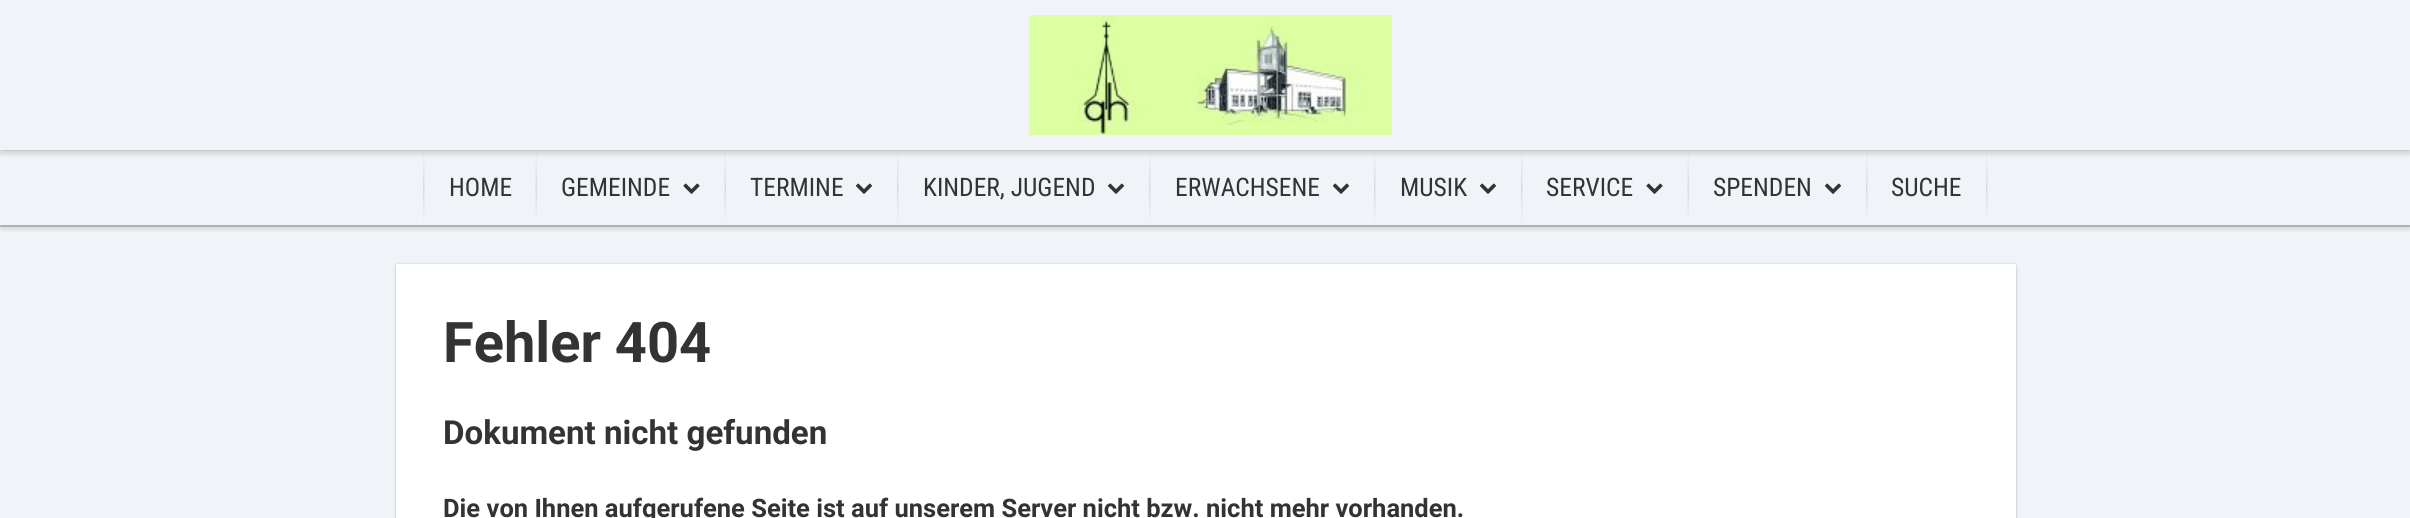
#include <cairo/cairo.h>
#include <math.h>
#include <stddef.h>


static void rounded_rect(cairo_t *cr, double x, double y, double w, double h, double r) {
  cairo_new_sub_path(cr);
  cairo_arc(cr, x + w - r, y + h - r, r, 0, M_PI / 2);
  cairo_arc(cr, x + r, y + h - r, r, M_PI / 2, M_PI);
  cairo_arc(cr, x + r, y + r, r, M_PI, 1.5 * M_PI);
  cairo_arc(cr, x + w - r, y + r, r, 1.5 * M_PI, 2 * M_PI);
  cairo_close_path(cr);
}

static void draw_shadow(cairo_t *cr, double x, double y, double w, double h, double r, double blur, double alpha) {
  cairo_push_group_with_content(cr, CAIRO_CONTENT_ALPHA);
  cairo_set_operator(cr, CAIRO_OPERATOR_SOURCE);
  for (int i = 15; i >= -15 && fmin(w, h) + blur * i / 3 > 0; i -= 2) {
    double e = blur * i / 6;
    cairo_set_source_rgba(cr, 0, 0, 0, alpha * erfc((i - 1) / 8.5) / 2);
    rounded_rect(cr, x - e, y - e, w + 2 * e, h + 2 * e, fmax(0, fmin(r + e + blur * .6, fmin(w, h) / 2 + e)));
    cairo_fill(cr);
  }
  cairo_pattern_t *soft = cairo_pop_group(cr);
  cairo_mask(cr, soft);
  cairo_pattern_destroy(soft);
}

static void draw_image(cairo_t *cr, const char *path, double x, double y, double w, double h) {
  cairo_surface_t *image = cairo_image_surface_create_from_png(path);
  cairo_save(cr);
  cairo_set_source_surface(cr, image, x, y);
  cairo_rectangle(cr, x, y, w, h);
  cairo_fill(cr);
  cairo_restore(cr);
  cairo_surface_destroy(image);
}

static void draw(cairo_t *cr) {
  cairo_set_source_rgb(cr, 240 / 255.0, 243 / 255.0, 247 / 255.0);
  cairo_paint(cr);
  cairo_set_source_rgb(cr, 0, 0, 0);
  draw_shadow(cr, 0, 155, 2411, 75, 0, 2, 0.1);
  cairo_set_source_rgb(cr, 240 / 255.0, 243 / 255.0, 247 / 255.0);
  cairo_rectangle(cr, 0, 153, 2410, 72);
  cairo_fill(cr);
  draw_image(cr, "images/2.png", 423, 154, 114, 67);
  draw_image(cr, "images/3.png", 724, 154, 2, 67);
  draw_image(cr, "images/5.png", 897, 154, 2, 67);
  draw_image(cr, "images/7.png", 1149, 154, 2, 67);
  draw_image(cr, "images/8.png", 1374, 154, 2, 66);
  draw_image(cr, "images/5.png", 1521, 154, 2, 67);
  draw_image(cr, "images/9.png", 1687, 154, 2, 66);
  draw_image(cr, "images/10.png", 1866, 154, 2, 66);
  draw_image(cr, "images/8.png", 1986, 154, 2, 66);
  cairo_set_source_rgb(cr, 0, 0, 0);
  draw_shadow(cr, 0, 5, 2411, 150, 0, 2, 0.1);
  draw_shadow(cr, 0, 0, 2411, 150, 0, 1, 0.2);
  cairo_set_source_rgb(cr, 240 / 255.0, 243 / 255.0, 247 / 255.0);
  cairo_rectangle(cr, 0, 0, 2410, 150);
  cairo_fill(cr);
  draw_image(cr, "images/1.png", 1028, 15, 364, 120);
  cairo_set_source_rgba(cr, 0, 0, 0, 0.2);
  cairo_new_path(cr);
  cairo_move_to(cr, 0, 225);
  cairo_line_to(cr, 0, 227);
  cairo_line_to(cr, 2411, 227);
  cairo_line_to(cr, 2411, 152);
  cairo_line_to(cr, 2410, 152);
  cairo_line_to(cr, 2410, 225);
  cairo_close_path(cr);
  cairo_fill(cr);
  draw_image(cr, "images/4.png", 683, 183, 17, 11);
  draw_image(cr, "images/6.png", 855, 183, 18, 11);
  draw_image(cr, "images/6.png", 1107, 183, 18, 11);
  draw_image(cr, "images/6.png", 1332, 183, 18, 11);
  draw_image(cr, "images/6.png", 1479, 183, 18, 11);
  draw_image(cr, "images/4.png", 1646, 183, 17, 11);
  draw_image(cr, "images/6.png", 1824, 183, 18, 11);
  cairo_set_source_rgb(cr, 0, 0, 0);
  draw_shadow(cr, 396, 269, 1620, 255, 0, 2, 0.1);
  draw_shadow(cr, 396, 264, 1620, 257, 0, 1, 0.2);
  cairo_set_source_rgb(cr, 1, 1, 1);
  cairo_rectangle(cr, 396, 264, 1620, 254);
  cairo_fill(cr);
  cairo_select_font_face(cr, "Roboto Condensed", CAIRO_FONT_SLANT_NORMAL, CAIRO_FONT_WEIGHT_NORMAL);
  cairo_set_font_size(cr, 25.5);
  cairo_set_source_rgb(cr, 51 / 255.0, 51 / 255.0, 51 / 255.0);
  cairo_move_to(cr, 449, 196);
  cairo_show_text(cr, "HOME");
  cairo_move_to(cr, 561, 196);
  cairo_show_text(cr, "GEMEINDE");
  cairo_move_to(cr, 750, 196);
  cairo_show_text(cr, "TERMINE");
  cairo_move_to(cr, 923, 196);
  cairo_show_text(cr, "KINDER, JUGEND");
  cairo_move_to(cr, 1175, 196);
  cairo_show_text(cr, "ERWACHSENE");
  cairo_move_to(cr, 1400, 196);
  cairo_show_text(cr, "MUSIK");
  cairo_move_to(cr, 1546, 196);
  cairo_show_text(cr, "SERVICE");
  cairo_move_to(cr, 1713, 196);
  cairo_show_text(cr, "SPENDEN");
  cairo_move_to(cr, 1891, 196);
  cairo_show_text(cr, "SUCHE");
  cairo_select_font_face(cr, "Roboto", CAIRO_FONT_SLANT_NORMAL, CAIRO_FONT_WEIGHT_BOLD);
  cairo_set_font_size(cr, 56);
  cairo_move_to(cr, 443, 362);
  cairo_show_text(cr, "Fehler 404");
  cairo_set_font_size(cr, 33.1);
  cairo_move_to(cr, 443, 444);
  cairo_show_text(cr, "Dokument nicht gefunden");
  cairo_select_font_face(cr, "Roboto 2", CAIRO_FONT_SLANT_NORMAL, CAIRO_FONT_WEIGHT_BOLD);
  cairo_set_font_size(cr, 25.5);
  cairo_move_to(cr, 443, 517);
  cairo_show_text(cr, "Die von Ihnen aufgerufene Seite ist auf unserem Server nicht bzw. nicht mehr vorhanden.");
}

int main(void) {
  cairo_surface_t *surface = cairo_image_surface_create(CAIRO_FORMAT_RGB24, 2410, 518);
  cairo_t *cr = cairo_create(surface);
  cairo_font_options_t *options = cairo_font_options_create();
  cairo_font_options_set_hint_metrics(options, CAIRO_HINT_METRICS_OFF);
  cairo_font_options_set_hint_style(options, CAIRO_HINT_STYLE_NONE);
  cairo_set_font_options(cr, options);
  cairo_set_miter_limit(cr, 4);
  draw(cr);
  cairo_surface_write_to_png(surface, "out.png");
  cairo_font_options_destroy(options);
  cairo_destroy(cr);
  cairo_surface_destroy(surface);
  return 0;
}
